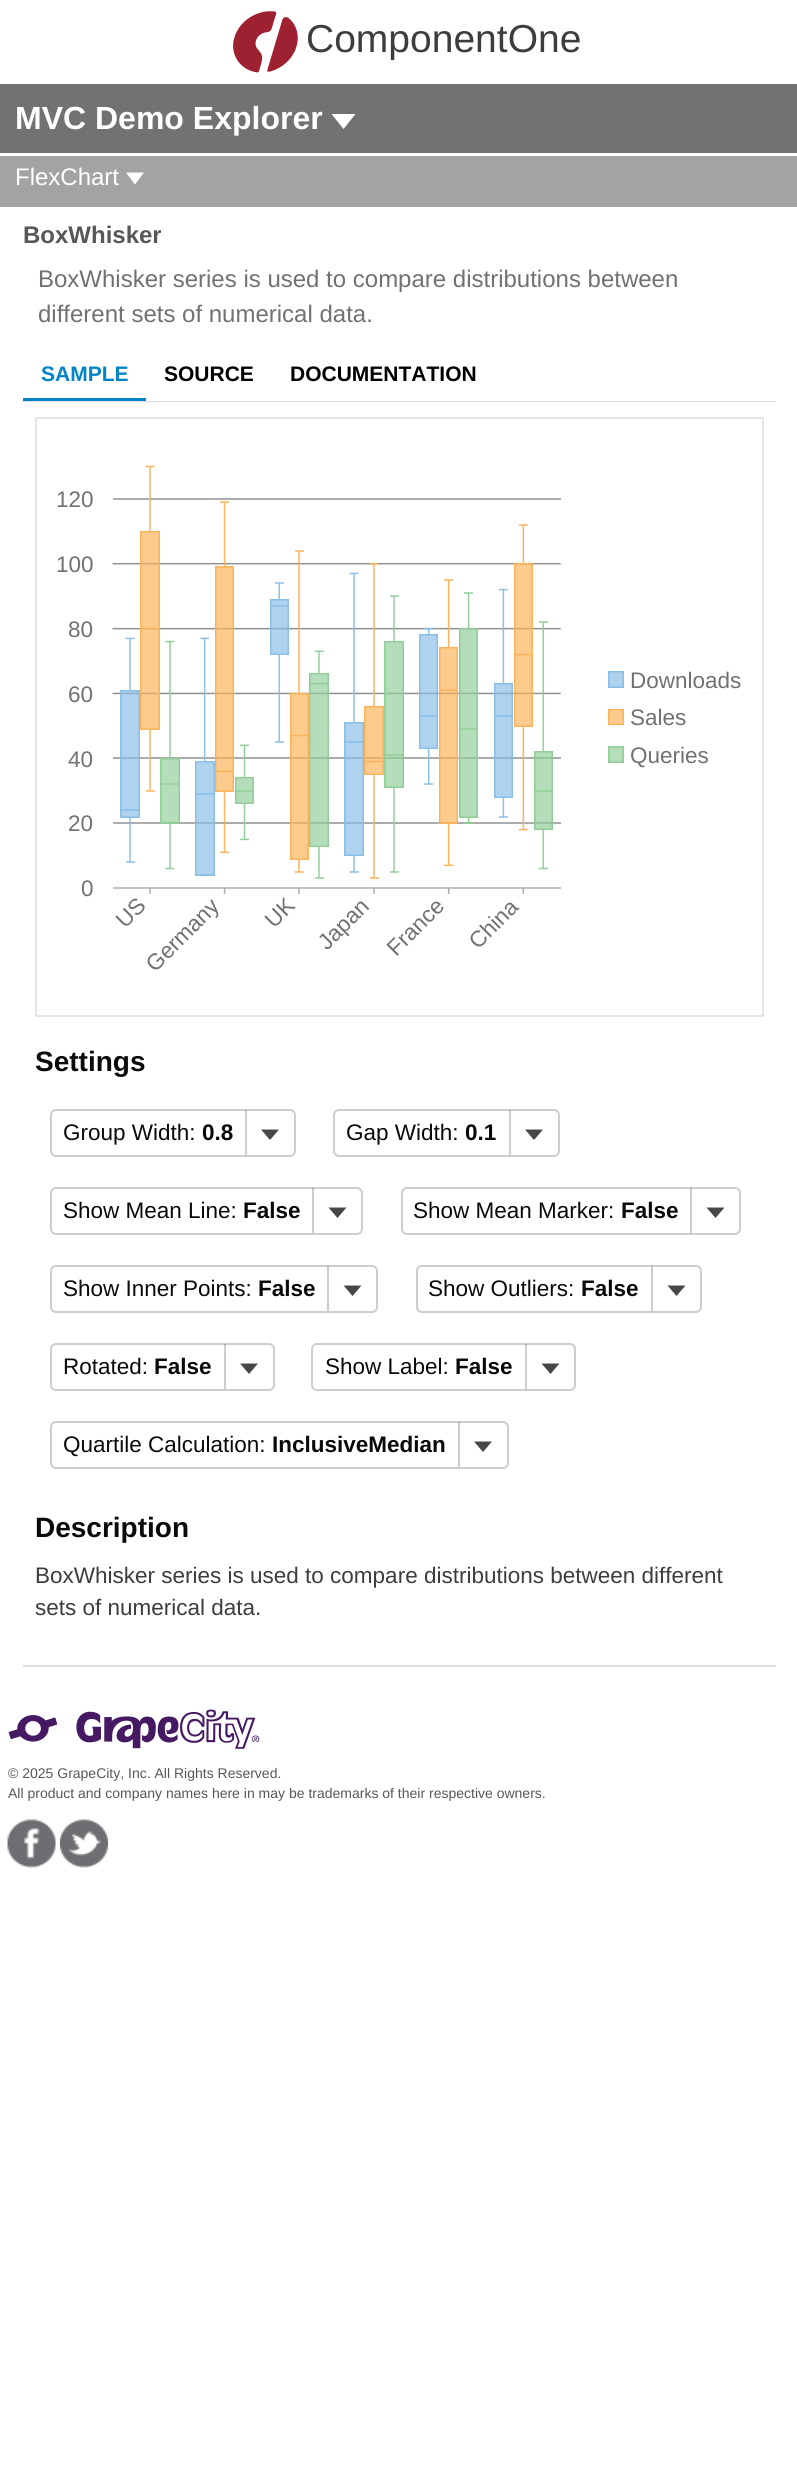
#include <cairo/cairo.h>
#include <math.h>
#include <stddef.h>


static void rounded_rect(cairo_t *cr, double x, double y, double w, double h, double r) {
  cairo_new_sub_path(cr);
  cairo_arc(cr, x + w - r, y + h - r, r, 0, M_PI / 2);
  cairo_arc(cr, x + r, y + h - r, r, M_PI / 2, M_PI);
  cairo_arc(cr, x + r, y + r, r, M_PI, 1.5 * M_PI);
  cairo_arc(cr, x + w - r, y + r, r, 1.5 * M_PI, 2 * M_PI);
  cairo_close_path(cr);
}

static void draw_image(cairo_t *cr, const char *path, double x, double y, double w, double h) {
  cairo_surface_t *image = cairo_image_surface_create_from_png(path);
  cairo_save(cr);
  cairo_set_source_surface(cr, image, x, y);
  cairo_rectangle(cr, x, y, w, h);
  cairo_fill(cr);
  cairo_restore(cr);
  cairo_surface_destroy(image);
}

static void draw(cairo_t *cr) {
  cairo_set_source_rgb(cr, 1, 1, 1);
  cairo_paint(cr);
  draw_image(cr, "images/1.png", 233, 11, 65, 62);
  cairo_set_source_rgb(cr, 114 / 255.0, 114 / 255.0, 114 / 255.0);
  cairo_rectangle(cr, 0, 84, 797, 69);
  cairo_fill(cr);
  cairo_set_source_rgb(cr, 1, 1, 1);
  cairo_new_path(cr);
  cairo_move_to(cr, 331.5, 114);
  cairo_line_to(cr, 355.5, 114);
  cairo_line_to(cr, 343.5, 129);
  cairo_close_path(cr);
  cairo_fill(cr);
  cairo_set_source_rgb(cr, 162 / 255.0, 163 / 255.0, 162 / 255.0);
  cairo_rectangle(cr, 0, 156, 797, 51);
  cairo_fill(cr);
  cairo_set_source_rgb(cr, 1, 1, 1);
  cairo_new_path(cr);
  cairo_move_to(cr, 126, 172.5);
  cairo_line_to(cr, 144, 172.5);
  cairo_line_to(cr, 135, 184.5);
  cairo_close_path(cr);
  cairo_fill(cr);
  cairo_set_source_rgb(cr, 221 / 255.0, 221 / 255.0, 221 / 255.0);
  cairo_rectangle(cr, 23, 1665, 753, 2);
  cairo_fill(cr);
  cairo_set_source_rgb(cr, 0, 133 / 255.0, 199 / 255.0);
  cairo_rectangle(cr, 23, 398, 123, 3);
  cairo_fill(cr);
  cairo_set_source_rgb(cr, 221 / 255.0, 221 / 255.0, 221 / 255.0);
  cairo_rectangle(cr, 23, 401, 753, 1);
  cairo_fill(cr);
  cairo_rectangle(cr, 36, 418, 727, 598);
  cairo_set_source_rgb(cr, 229 / 255.0, 229 / 255.0, 229 / 255.0);
  cairo_stroke(cr);
  draw_image(cr, "images/2.png", 112, 465, 512, 429);
  rounded_rect(cr, 51, 1110, 244, 46, 5);
  cairo_set_source_rgb(cr, 206 / 255.0, 206 / 255.0, 206 / 255.0);
  cairo_stroke(cr);
  cairo_set_source_rgba(cr, 10 / 255.0, 10 / 255.0, 10 / 255.0, 0.2);
  cairo_rectangle(cr, 245, 1110, 2, 45);
  cairo_fill(cr);
  cairo_set_source_rgb(cr, 71 / 255.0, 71 / 255.0, 71 / 255.0);
  cairo_new_path(cr);
  cairo_move_to(cr, 261, 1129.5);
  cairo_line_to(cr, 279, 1129.5);
  cairo_line_to(cr, 270, 1140);
  cairo_close_path(cr);
  cairo_fill(cr);
  rounded_rect(cr, 334, 1110, 225, 46, 5);
  cairo_set_source_rgb(cr, 206 / 255.0, 206 / 255.0, 206 / 255.0);
  cairo_stroke(cr);
  cairo_set_source_rgba(cr, 10 / 255.0, 10 / 255.0, 10 / 255.0, 0.2);
  cairo_rectangle(cr, 509, 1110, 2, 45);
  cairo_fill(cr);
  cairo_set_source_rgb(cr, 71 / 255.0, 71 / 255.0, 71 / 255.0);
  cairo_new_path(cr);
  cairo_move_to(cr, 525, 1129.5);
  cairo_line_to(cr, 543, 1129.5);
  cairo_line_to(cr, 534, 1140);
  cairo_close_path(cr);
  cairo_fill(cr);
  rounded_rect(cr, 51, 1188, 311, 46, 5);
  cairo_set_source_rgb(cr, 206 / 255.0, 206 / 255.0, 206 / 255.0);
  cairo_stroke(cr);
  cairo_set_source_rgba(cr, 10 / 255.0, 10 / 255.0, 10 / 255.0, 0.2);
  cairo_rectangle(cr, 312, 1188, 2, 45);
  cairo_fill(cr);
  cairo_set_source_rgb(cr, 71 / 255.0, 71 / 255.0, 71 / 255.0);
  cairo_new_path(cr);
  cairo_move_to(cr, 328.5, 1207.5);
  cairo_line_to(cr, 346.5, 1207.5);
  cairo_line_to(cr, 337.5, 1218);
  cairo_close_path(cr);
  cairo_fill(cr);
  rounded_rect(cr, 402, 1188, 338, 46, 5);
  cairo_set_source_rgb(cr, 206 / 255.0, 206 / 255.0, 206 / 255.0);
  cairo_stroke(cr);
  cairo_set_source_rgba(cr, 10 / 255.0, 10 / 255.0, 10 / 255.0, 0.2);
  cairo_rectangle(cr, 690, 1188, 2, 45);
  cairo_fill(cr);
  cairo_set_source_rgb(cr, 71 / 255.0, 71 / 255.0, 71 / 255.0);
  cairo_new_path(cr);
  cairo_move_to(cr, 706.5, 1207.5);
  cairo_line_to(cr, 724.5, 1207.5);
  cairo_line_to(cr, 715.5, 1218);
  cairo_close_path(cr);
  cairo_fill(cr);
  rounded_rect(cr, 51, 1266, 326, 46, 5);
  cairo_set_source_rgb(cr, 206 / 255.0, 206 / 255.0, 206 / 255.0);
  cairo_stroke(cr);
  cairo_set_source_rgba(cr, 10 / 255.0, 10 / 255.0, 10 / 255.0, 0.2);
  cairo_rectangle(cr, 327, 1266, 2, 45);
  cairo_fill(cr);
  cairo_set_source_rgb(cr, 71 / 255.0, 71 / 255.0, 71 / 255.0);
  cairo_new_path(cr);
  cairo_move_to(cr, 343.5, 1285.5);
  cairo_line_to(cr, 361.5, 1285.5);
  cairo_line_to(cr, 352.5, 1296);
  cairo_close_path(cr);
  cairo_fill(cr);
  rounded_rect(cr, 417, 1266, 284, 46, 5);
  cairo_set_source_rgb(cr, 206 / 255.0, 206 / 255.0, 206 / 255.0);
  cairo_stroke(cr);
  cairo_set_source_rgba(cr, 10 / 255.0, 10 / 255.0, 10 / 255.0, 0.2);
  cairo_rectangle(cr, 651, 1266, 2, 45);
  cairo_fill(cr);
  cairo_set_source_rgb(cr, 71 / 255.0, 71 / 255.0, 71 / 255.0);
  cairo_new_path(cr);
  cairo_move_to(cr, 667.5, 1285.5);
  cairo_line_to(cr, 685.5, 1285.5);
  cairo_line_to(cr, 676.5, 1296);
  cairo_close_path(cr);
  cairo_fill(cr);
  rounded_rect(cr, 51, 1344, 223, 46, 5);
  cairo_set_source_rgb(cr, 206 / 255.0, 206 / 255.0, 206 / 255.0);
  cairo_stroke(cr);
  cairo_set_source_rgba(cr, 10 / 255.0, 10 / 255.0, 10 / 255.0, 0.2);
  cairo_rectangle(cr, 224, 1344, 2, 45);
  cairo_fill(cr);
  cairo_set_source_rgb(cr, 71 / 255.0, 71 / 255.0, 71 / 255.0);
  cairo_new_path(cr);
  cairo_move_to(cr, 240, 1363.5);
  cairo_line_to(cr, 258, 1363.5);
  cairo_line_to(cr, 249, 1374);
  cairo_close_path(cr);
  cairo_fill(cr);
  rounded_rect(cr, 312, 1344, 263, 46, 5);
  cairo_set_source_rgb(cr, 206 / 255.0, 206 / 255.0, 206 / 255.0);
  cairo_stroke(cr);
  cairo_set_source_rgba(cr, 10 / 255.0, 10 / 255.0, 10 / 255.0, 0.2);
  cairo_rectangle(cr, 525, 1344, 2, 45);
  cairo_fill(cr);
  cairo_set_source_rgb(cr, 71 / 255.0, 71 / 255.0, 71 / 255.0);
  cairo_new_path(cr);
  cairo_move_to(cr, 541.5, 1363.5);
  cairo_line_to(cr, 559.5, 1363.5);
  cairo_line_to(cr, 550.5, 1374);
  cairo_close_path(cr);
  cairo_fill(cr);
  rounded_rect(cr, 51, 1422, 457, 46, 5);
  cairo_set_source_rgb(cr, 206 / 255.0, 206 / 255.0, 206 / 255.0);
  cairo_stroke(cr);
  cairo_set_source_rgba(cr, 10 / 255.0, 10 / 255.0, 10 / 255.0, 0.2);
  cairo_rectangle(cr, 458, 1422, 2, 45);
  cairo_fill(cr);
  cairo_set_source_rgb(cr, 71 / 255.0, 71 / 255.0, 71 / 255.0);
  cairo_new_path(cr);
  cairo_move_to(cr, 474, 1441.5);
  cairo_line_to(cr, 492, 1441.5);
  cairo_line_to(cr, 483, 1452);
  cairo_close_path(cr);
  cairo_fill(cr);
  draw_image(cr, "images/3.png", 8, 1709, 252, 40);
  draw_image(cr, "images/4.png", 7, 1819, 49, 49);
  draw_image(cr, "images/5.png", 60, 1819, 48, 49);
  cairo_select_font_face(cr, "Liberation Sans", CAIRO_FONT_SLANT_NORMAL, CAIRO_FONT_WEIGHT_NORMAL);
  cairo_set_font_size(cr, 39);
  cairo_set_source_rgb(cr, 61 / 255.0, 61 / 255.0, 61 / 255.0);
  cairo_move_to(cr, 306, 52);
  cairo_show_text(cr, "ComponentOne");
  cairo_select_font_face(cr, "Liberation Sans", CAIRO_FONT_SLANT_NORMAL, CAIRO_FONT_WEIGHT_BOLD);
  cairo_set_font_size(cr, 32);
  cairo_set_source_rgb(cr, 1, 1, 1);
  cairo_move_to(cr, 15, 129);
  cairo_show_text(cr, "MVC Demo Explorer");
  cairo_select_font_face(cr, "Liberation Sans", CAIRO_FONT_SLANT_NORMAL, CAIRO_FONT_WEIGHT_NORMAL);
  cairo_set_font_size(cr, 24);
  cairo_move_to(cr, 15, 185);
  cairo_show_text(cr, "FlexChart");
  cairo_select_font_face(cr, "Liberation Sans", CAIRO_FONT_SLANT_NORMAL, CAIRO_FONT_WEIGHT_BOLD);
  cairo_set_source_rgb(cr, 87 / 255.0, 87 / 255.0, 87 / 255.0);
  cairo_move_to(cr, 23, 243);
  cairo_show_text(cr, "BoxWhisker");
  cairo_select_font_face(cr, "Liberation Sans", CAIRO_FONT_SLANT_NORMAL, CAIRO_FONT_WEIGHT_NORMAL);
  cairo_set_source_rgb(cr, 113 / 255.0, 113 / 255.0, 113 / 255.0);
  cairo_move_to(cr, 38, 287);
  cairo_show_text(cr, "BoxWhisker series is used to compare distributions between");
  cairo_move_to(cr, 38, 322);
  cairo_show_text(cr, "different sets of numerical data.");
  cairo_select_font_face(cr, "Liberation Sans", CAIRO_FONT_SLANT_NORMAL, CAIRO_FONT_WEIGHT_BOLD);
  cairo_set_font_size(cr, 21);
  cairo_set_source_rgb(cr, 0, 133 / 255.0, 199 / 255.0);
  cairo_move_to(cr, 41, 381);
  cairo_show_text(cr, "SAMPLE");
  cairo_set_source_rgb(cr, 0, 0, 0);
  cairo_move_to(cr, 164, 381);
  cairo_show_text(cr, "SOURCE");
  cairo_move_to(cr, 290, 381);
  cairo_show_text(cr, "DOCUMENTATION");
  cairo_select_font_face(cr, "Liberation Sans", CAIRO_FONT_SLANT_NORMAL, CAIRO_FONT_WEIGHT_NORMAL);
  cairo_set_font_size(cr, 22.5);
  cairo_set_source_rgb(cr, 113 / 255.0, 113 / 255.0, 113 / 255.0);
  cairo_move_to(cr, 56, 507);
  cairo_show_text(cr, "120");
  cairo_move_to(cr, 56, 572);
  cairo_show_text(cr, "100");
  cairo_move_to(cr, 68, 637);
  cairo_show_text(cr, "80");
  cairo_move_to(cr, 630, 688);
  cairo_show_text(cr, "Downloads");
  cairo_move_to(cr, 68, 702);
  cairo_show_text(cr, "60");
  cairo_move_to(cr, 630, 725);
  cairo_show_text(cr, "Sales");
  cairo_move_to(cr, 68, 767);
  cairo_show_text(cr, "40");
  cairo_move_to(cr, 630, 763);
  cairo_show_text(cr, "Queries");
  cairo_move_to(cr, 68, 831);
  cairo_show_text(cr, "20");
  cairo_move_to(cr, 81, 896);
  cairo_show_text(cr, "0");
  cairo_save(cr);
  cairo_translate(cr, 125, 929);
  cairo_rotate(cr, -45 * M_PI / 180);
  cairo_move_to(cr, 0, 0);
  cairo_show_text(cr, "US");
  cairo_restore(cr);
  cairo_save(cr);
  cairo_translate(cr, 155, 973);
  cairo_rotate(cr, -45 * M_PI / 180);
  cairo_move_to(cr, 0, 0);
  cairo_show_text(cr, "Germany");
  cairo_restore(cr);
  cairo_save(cr);
  cairo_translate(cr, 274, 929);
  cairo_rotate(cr, -45 * M_PI / 180);
  cairo_move_to(cr, 0, 0);
  cairo_show_text(cr, "UK");
  cairo_restore(cr);
  cairo_save(cr);
  cairo_translate(cr, 327, 951);
  cairo_rotate(cr, -45 * M_PI / 180);
  cairo_move_to(cr, 0, 0);
  cairo_show_text(cr, "Japan");
  cairo_restore(cr);
  cairo_save(cr);
  cairo_translate(cr, 396, 957);
  cairo_rotate(cr, -45 * M_PI / 180);
  cairo_move_to(cr, 0, 0);
  cairo_show_text(cr, "France");
  cairo_restore(cr);
  cairo_save(cr);
  cairo_translate(cr, 478, 950);
  cairo_rotate(cr, -45 * M_PI / 180);
  cairo_move_to(cr, 0, 0);
  cairo_show_text(cr, "China");
  cairo_restore(cr);
  cairo_select_font_face(cr, "Liberation Sans", CAIRO_FONT_SLANT_NORMAL, CAIRO_FONT_WEIGHT_BOLD);
  cairo_set_font_size(cr, 28);
  cairo_set_source_rgb(cr, 10 / 255.0, 10 / 255.0, 10 / 255.0);
  cairo_move_to(cr, 35, 1071);
  cairo_show_text(cr, "Settings");
  cairo_select_font_face(cr, "Liberation Sans", CAIRO_FONT_SLANT_NORMAL, CAIRO_FONT_WEIGHT_NORMAL);
  cairo_set_font_size(cr, 22.5);
  cairo_move_to(cr, 63, 1140);
  cairo_show_text(cr, "Group Width:");
  cairo_select_font_face(cr, "Liberation Sans", CAIRO_FONT_SLANT_NORMAL, CAIRO_FONT_WEIGHT_BOLD);
  cairo_move_to(cr, 202, 1140);
  cairo_show_text(cr, "0.8");
  cairo_select_font_face(cr, "Liberation Sans", CAIRO_FONT_SLANT_NORMAL, CAIRO_FONT_WEIGHT_NORMAL);
  cairo_move_to(cr, 346, 1140);
  cairo_show_text(cr, "Gap Width:");
  cairo_select_font_face(cr, "Liberation Sans", CAIRO_FONT_SLANT_NORMAL, CAIRO_FONT_WEIGHT_BOLD);
  cairo_move_to(cr, 465, 1140);
  cairo_show_text(cr, "0.1");
  cairo_select_font_face(cr, "Liberation Sans", CAIRO_FONT_SLANT_NORMAL, CAIRO_FONT_WEIGHT_NORMAL);
  cairo_move_to(cr, 63, 1218);
  cairo_show_text(cr, "Show Mean Line:");
  cairo_select_font_face(cr, "Liberation Sans", CAIRO_FONT_SLANT_NORMAL, CAIRO_FONT_WEIGHT_BOLD);
  cairo_move_to(cr, 243, 1218);
  cairo_show_text(cr, "False");
  cairo_select_font_face(cr, "Liberation Sans", CAIRO_FONT_SLANT_NORMAL, CAIRO_FONT_WEIGHT_NORMAL);
  cairo_move_to(cr, 413, 1218);
  cairo_show_text(cr, "Show Mean Marker:");
  cairo_select_font_face(cr, "Liberation Sans", CAIRO_FONT_SLANT_NORMAL, CAIRO_FONT_WEIGHT_BOLD);
  cairo_move_to(cr, 621, 1218);
  cairo_show_text(cr, "False");
  cairo_select_font_face(cr, "Liberation Sans", CAIRO_FONT_SLANT_NORMAL, CAIRO_FONT_WEIGHT_NORMAL);
  cairo_move_to(cr, 63, 1296);
  cairo_show_text(cr, "Show Inner Points:");
  cairo_select_font_face(cr, "Liberation Sans", CAIRO_FONT_SLANT_NORMAL, CAIRO_FONT_WEIGHT_BOLD);
  cairo_move_to(cr, 258, 1296);
  cairo_show_text(cr, "False");
  cairo_select_font_face(cr, "Liberation Sans", CAIRO_FONT_SLANT_NORMAL, CAIRO_FONT_WEIGHT_NORMAL);
  cairo_move_to(cr, 428, 1296);
  cairo_show_text(cr, "Show Outliers:");
  cairo_select_font_face(cr, "Liberation Sans", CAIRO_FONT_SLANT_NORMAL, CAIRO_FONT_WEIGHT_BOLD);
  cairo_move_to(cr, 581, 1296);
  cairo_show_text(cr, "False");
  cairo_select_font_face(cr, "Liberation Sans", CAIRO_FONT_SLANT_NORMAL, CAIRO_FONT_WEIGHT_NORMAL);
  cairo_move_to(cr, 63, 1374);
  cairo_show_text(cr, "Rotated:");
  cairo_select_font_face(cr, "Liberation Sans", CAIRO_FONT_SLANT_NORMAL, CAIRO_FONT_WEIGHT_BOLD);
  cairo_move_to(cr, 154, 1374);
  cairo_show_text(cr, "False");
  cairo_select_font_face(cr, "Liberation Sans", CAIRO_FONT_SLANT_NORMAL, CAIRO_FONT_WEIGHT_NORMAL);
  cairo_move_to(cr, 325, 1374);
  cairo_show_text(cr, "Show Label:");
  cairo_select_font_face(cr, "Liberation Sans", CAIRO_FONT_SLANT_NORMAL, CAIRO_FONT_WEIGHT_BOLD);
  cairo_move_to(cr, 455, 1374);
  cairo_show_text(cr, "False");
  cairo_select_font_face(cr, "Liberation Sans", CAIRO_FONT_SLANT_NORMAL, CAIRO_FONT_WEIGHT_NORMAL);
  cairo_move_to(cr, 63, 1452);
  cairo_show_text(cr, "Quartile Calculation:");
  cairo_select_font_face(cr, "Liberation Sans", CAIRO_FONT_SLANT_NORMAL, CAIRO_FONT_WEIGHT_BOLD);
  cairo_move_to(cr, 272, 1452);
  cairo_show_text(cr, "InclusiveMedian");
  cairo_set_font_size(cr, 28);
  cairo_move_to(cr, 35, 1537);
  cairo_show_text(cr, "Description");
  cairo_select_font_face(cr, "Liberation Sans", CAIRO_FONT_SLANT_NORMAL, CAIRO_FONT_WEIGHT_NORMAL);
  cairo_set_font_size(cr, 22.5);
  cairo_set_source_rgb(cr, 61 / 255.0, 61 / 255.0, 61 / 255.0);
  cairo_move_to(cr, 35, 1583);
  cairo_show_text(cr, "BoxWhisker series is used to compare distributions between different");
  cairo_move_to(cr, 35, 1615);
  cairo_show_text(cr, "sets of numerical data.");
  cairo_set_font_size(cr, 14);
  cairo_set_source_rgb(cr, 87 / 255.0, 87 / 255.0, 87 / 255.0);
  cairo_move_to(cr, 8, 1778);
  cairo_show_text(cr, "© 2025 GrapeCity, Inc. All Rights Reserved.");
  cairo_move_to(cr, 8, 1798);
  cairo_show_text(cr, "All product and company names here in may be trademarks of their respective owners.");
}

int main(void) {
  cairo_surface_t *surface = cairo_image_surface_create(CAIRO_FORMAT_RGB24, 797, 2469);
  cairo_t *cr = cairo_create(surface);
  cairo_font_options_t *options = cairo_font_options_create();
  cairo_font_options_set_hint_metrics(options, CAIRO_HINT_METRICS_OFF);
  cairo_font_options_set_hint_style(options, CAIRO_HINT_STYLE_NONE);
  cairo_set_font_options(cr, options);
  cairo_set_miter_limit(cr, 4);
  draw(cr);
  cairo_surface_write_to_png(surface, "out.png");
  cairo_font_options_destroy(options);
  cairo_destroy(cr);
  cairo_surface_destroy(surface);
  return 0;
}
